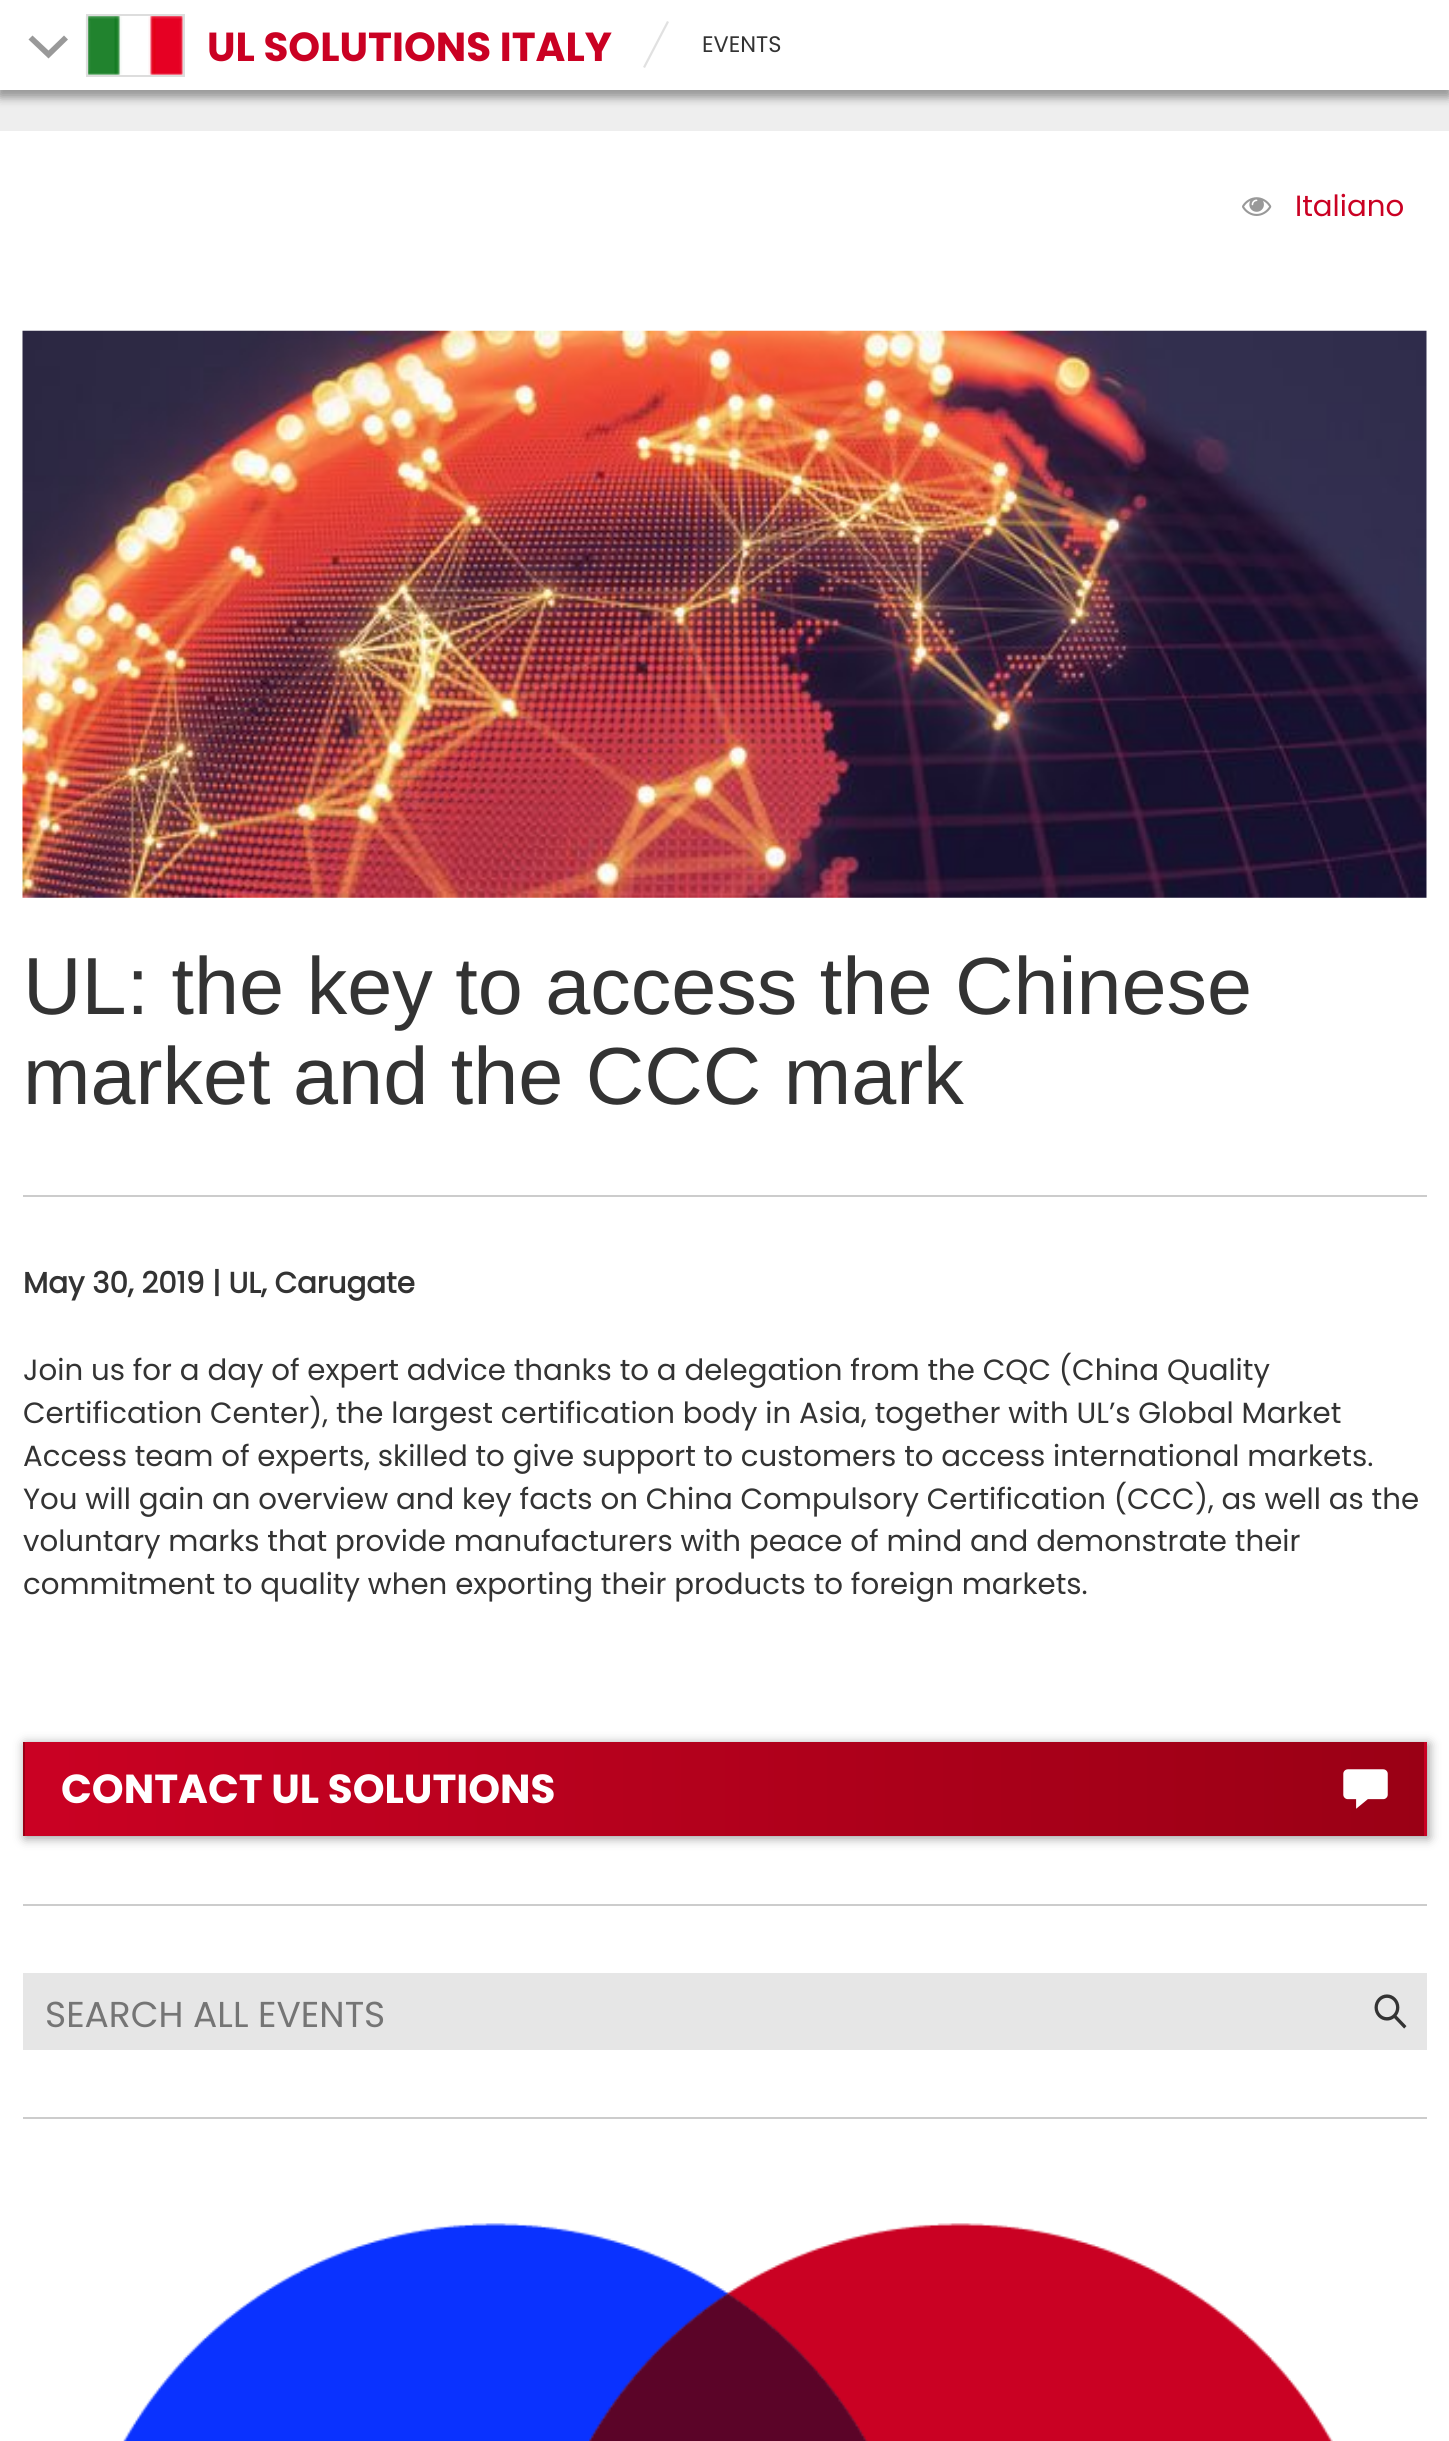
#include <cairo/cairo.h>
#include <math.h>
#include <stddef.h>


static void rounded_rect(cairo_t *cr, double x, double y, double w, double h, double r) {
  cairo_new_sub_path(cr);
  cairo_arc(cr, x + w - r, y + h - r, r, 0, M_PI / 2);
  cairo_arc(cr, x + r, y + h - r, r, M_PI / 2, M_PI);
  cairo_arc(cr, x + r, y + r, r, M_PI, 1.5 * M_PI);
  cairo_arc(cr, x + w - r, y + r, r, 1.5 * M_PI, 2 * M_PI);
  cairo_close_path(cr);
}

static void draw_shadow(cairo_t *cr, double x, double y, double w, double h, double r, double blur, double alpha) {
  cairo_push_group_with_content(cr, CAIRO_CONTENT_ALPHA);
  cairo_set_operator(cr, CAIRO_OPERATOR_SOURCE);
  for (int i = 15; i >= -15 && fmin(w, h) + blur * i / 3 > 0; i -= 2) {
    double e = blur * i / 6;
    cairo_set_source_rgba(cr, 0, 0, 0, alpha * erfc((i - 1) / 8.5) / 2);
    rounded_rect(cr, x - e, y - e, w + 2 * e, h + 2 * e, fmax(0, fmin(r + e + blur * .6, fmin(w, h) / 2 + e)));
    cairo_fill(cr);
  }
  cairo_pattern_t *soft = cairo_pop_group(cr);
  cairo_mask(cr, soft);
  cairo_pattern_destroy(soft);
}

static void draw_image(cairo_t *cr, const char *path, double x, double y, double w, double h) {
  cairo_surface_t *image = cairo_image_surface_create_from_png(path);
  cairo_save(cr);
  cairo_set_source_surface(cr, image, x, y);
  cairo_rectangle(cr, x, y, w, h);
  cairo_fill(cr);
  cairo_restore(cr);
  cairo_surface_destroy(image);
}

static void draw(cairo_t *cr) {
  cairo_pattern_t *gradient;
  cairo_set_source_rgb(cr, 238 / 255.0, 238 / 255.0, 238 / 255.0);
  cairo_paint(cr);
  cairo_set_source_rgb(cr, 153 / 255.0, 153 / 255.0, 153 / 255.0);
  draw_shadow(cr, 0, 5, 1449, 90, 0, 5.5, 1);
  cairo_set_source_rgb(cr, 1, 1, 1);
  cairo_rectangle(cr, 0, 0, 1449, 90);
  cairo_fill(cr);
  cairo_save(cr);
  cairo_rectangle(cr, 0, 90, 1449, 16);
  cairo_clip(cr);
  cairo_set_source_rgb(cr, 153 / 255.0, 153 / 255.0, 153 / 255.0);
  draw_shadow(cr, 0, 5, 1449, 90, 0, 5.5, 1);
  cairo_restore(cr);
  cairo_set_source_rgb(cr, 153 / 255.0, 153 / 255.0, 153 / 255.0);
  cairo_new_path(cr);
  cairo_move_to(cr, 28.5, 39.5);
  cairo_line_to(cr, 32.5, 35.5);
  cairo_line_to(cr, 48.5, 50.5);
  cairo_line_to(cr, 64, 35.5);
  cairo_line_to(cr, 68, 39.5);
  cairo_line_to(cr, 48.5, 58.5);
  cairo_close_path(cr);
  cairo_fill(cr);
  draw_image(cr, "images/1.png", 85, 16, 98, 59);
  cairo_rectangle(cr, 87, 15, 97, 61);
  cairo_set_source_rgb(cr, 221 / 255.0, 221 / 255.0, 221 / 255.0);
  cairo_stroke(cr);
  cairo_set_source_rgb(cr, 225 / 255.0, 225 / 255.0, 225 / 255.0);
  cairo_new_path(cr);
  cairo_move_to(cr, 645, 68);
  cairo_line_to(cr, 669, 22);
  cairo_line_to(cr, 667, 21);
  cairo_line_to(cr, 643, 67);
  cairo_close_path(cr);
  cairo_fill(cr);
  cairo_set_source_rgb(cr, 1, 1, 1);
  cairo_rectangle(cr, 0, 131, 1449, 2310);
  cairo_fill(cr);
  draw_image(cr, "images/2.png", 1242, 197, 30, 19);
  cairo_set_source_rgb(cr, 204 / 255.0, 204 / 255.0, 204 / 255.0);
  cairo_rectangle(cr, 23, 1195, 1404, 2);
  cairo_fill(cr);
  draw_image(cr, "images/3.png", 22, 330, 1405, 568);
  cairo_set_source_rgb(cr, 153 / 255.0, 153 / 255.0, 153 / 255.0);
  draw_shadow(cr, 25, 1744, 1404, 94, 0, 5.5, 1);
  gradient = cairo_pattern_create_linear(-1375, 1789, 25, 1789);
  cairo_pattern_add_color_stop_rgba(gradient, 0, 202 / 255.0, 1 / 255.0, 35 / 255.0, 1);
  cairo_pattern_add_color_stop_rgba(gradient, 1, 154 / 255.0, 0, 21 / 255.0, 1);
  cairo_set_source(cr, gradient);
  cairo_pattern_destroy(gradient);
  cairo_rectangle(cr, 23, 1742, 2, 94);
  cairo_fill(cr);
  gradient = cairo_pattern_create_linear(25, 1789, 1424, 1789);
  cairo_pattern_add_color_stop_rgba(gradient, 0, 202 / 255.0, 1 / 255.0, 35 / 255.0, 1);
  cairo_pattern_add_color_stop_rgba(gradient, 1, 154 / 255.0, 0, 21 / 255.0, 1);
  cairo_set_source(cr, gradient);
  cairo_pattern_destroy(gradient);
  cairo_rectangle(cr, 25, 1742, 1399, 94);
  cairo_fill(cr);
  gradient = cairo_pattern_create_linear(1424, 1789, 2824, 1789);
  cairo_pattern_add_color_stop_rgba(gradient, 0, 202 / 255.0, 1 / 255.0, 35 / 255.0, 1);
  cairo_pattern_add_color_stop_rgba(gradient, 1, 154 / 255.0, 0, 21 / 255.0, 1);
  cairo_set_source(cr, gradient);
  cairo_pattern_destroy(gradient);
  cairo_rectangle(cr, 1424, 1742, 3, 94);
  cairo_fill(cr);
  draw_image(cr, "images/4.png", 1343, 1769, 45, 40);
  cairo_set_source_rgb(cr, 204 / 255.0, 204 / 255.0, 204 / 255.0);
  cairo_rectangle(cr, 23, 1904, 1404, 2);
  cairo_fill(cr);
  cairo_set_source_rgb(cr, 230 / 255.0, 230 / 255.0, 230 / 255.0);
  cairo_rectangle(cr, 23, 1973, 1404, 77);
  cairo_fill(cr);
  draw_image(cr, "images/5.png", 1374, 1994, 33, 35);
  cairo_set_source_rgb(cr, 204 / 255.0, 204 / 255.0, 204 / 255.0);
  cairo_rectangle(cr, 23, 2117, 1404, 2);
  cairo_fill(cr);
  draw_image(cr, "images/6.png", 123, 2223, 1210, 218);
  cairo_select_font_face(cr, "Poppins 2", CAIRO_FONT_SLANT_NORMAL, CAIRO_FONT_WEIGHT_BOLD);
  cairo_set_font_size(cr, 40.5);
  cairo_set_source_rgb(cr, 202 / 255.0, 1 / 255.0, 35 / 255.0);
  cairo_move_to(cr, 207, 61);
  cairo_show_text(cr, "UL SOLUTIONS ITALY");
  cairo_select_font_face(cr, "Poppins", CAIRO_FONT_SLANT_NORMAL, CAIRO_FONT_WEIGHT_NORMAL);
  cairo_set_font_size(cr, 22.5);
  cairo_set_source_rgb(cr, 51 / 255.0, 51 / 255.0, 51 / 255.0);
  cairo_move_to(cr, 702, 52);
  cairo_show_text(cr, "EVENTS");
  cairo_set_font_size(cr, 29.25);
  cairo_set_source_rgb(cr, 202 / 255.0, 1 / 255.0, 35 / 255.0);
  cairo_move_to(cr, 1295, 216);
  cairo_show_text(cr, "Italiano");
  cairo_select_font_face(cr, "Liberation Sans", CAIRO_FONT_SLANT_NORMAL, CAIRO_FONT_WEIGHT_NORMAL);
  cairo_set_font_size(cr, 81);
  cairo_set_source_rgb(cr, 51 / 255.0, 51 / 255.0, 51 / 255.0);
  cairo_move_to(cr, 23, 1014);
  cairo_show_text(cr, "UL: the key to access the Chinese");
  cairo_move_to(cr, 23, 1104);
  cairo_show_text(cr, "market and the CCC mark");
  cairo_select_font_face(cr, "Poppins", CAIRO_FONT_SLANT_NORMAL, CAIRO_FONT_WEIGHT_BOLD);
  cairo_set_font_size(cr, 29.25);
  cairo_move_to(cr, 23, 1293);
  cairo_show_text(cr, "May 30, 2019 | UL, Carugate");
  cairo_select_font_face(cr, "Poppins", CAIRO_FONT_SLANT_NORMAL, CAIRO_FONT_WEIGHT_NORMAL);
  cairo_move_to(cr, 23, 1380);
  cairo_show_text(cr, "Join us for a day of expert advice thanks to a delegation from the CQC (China Quality");
  cairo_move_to(cr, 23, 1423);
  cairo_show_text(cr, "Certification Center), the largest certification body in Asia, together with UL’s Global Market");
  cairo_move_to(cr, 23, 1466);
  cairo_show_text(cr, "Access team of experts, skilled to give support to customers to access international markets.");
  cairo_move_to(cr, 23, 1509);
  cairo_show_text(cr, "You will gain an overview and key facts on China Compulsory Certification (CCC), as well as the");
  cairo_move_to(cr, 23, 1551);
  cairo_show_text(cr, "voluntary marks that provide manufacturers with peace of mind and demonstrate their");
  cairo_move_to(cr, 23, 1594);
  cairo_show_text(cr, "commitment to quality when exporting their products to foreign markets.");
  cairo_select_font_face(cr, "Poppins 2", CAIRO_FONT_SLANT_NORMAL, CAIRO_FONT_WEIGHT_BOLD);
  cairo_set_font_size(cr, 40.5);
  cairo_set_source_rgb(cr, 1, 1, 1);
  cairo_move_to(cr, 61, 1803);
  cairo_show_text(cr, "CONTACT UL SOLUTIONS");
  cairo_select_font_face(cr, "Poppins", CAIRO_FONT_SLANT_NORMAL, CAIRO_FONT_WEIGHT_NORMAL);
  cairo_set_font_size(cr, 36);
  cairo_set_source_rgb(cr, 117 / 255.0, 117 / 255.0, 117 / 255.0);
  cairo_move_to(cr, 45, 2027);
  cairo_show_text(cr, "SEARCH ALL EVENTS");
}

int main(void) {
  cairo_surface_t *surface = cairo_image_surface_create(CAIRO_FORMAT_RGB24, 1449, 2441);
  cairo_t *cr = cairo_create(surface);
  cairo_font_options_t *options = cairo_font_options_create();
  cairo_font_options_set_hint_metrics(options, CAIRO_HINT_METRICS_OFF);
  cairo_font_options_set_hint_style(options, CAIRO_HINT_STYLE_NONE);
  cairo_set_font_options(cr, options);
  cairo_set_miter_limit(cr, 4);
  draw(cr);
  cairo_surface_write_to_png(surface, "out.png");
  cairo_font_options_destroy(options);
  cairo_destroy(cr);
  cairo_surface_destroy(surface);
  return 0;
}
